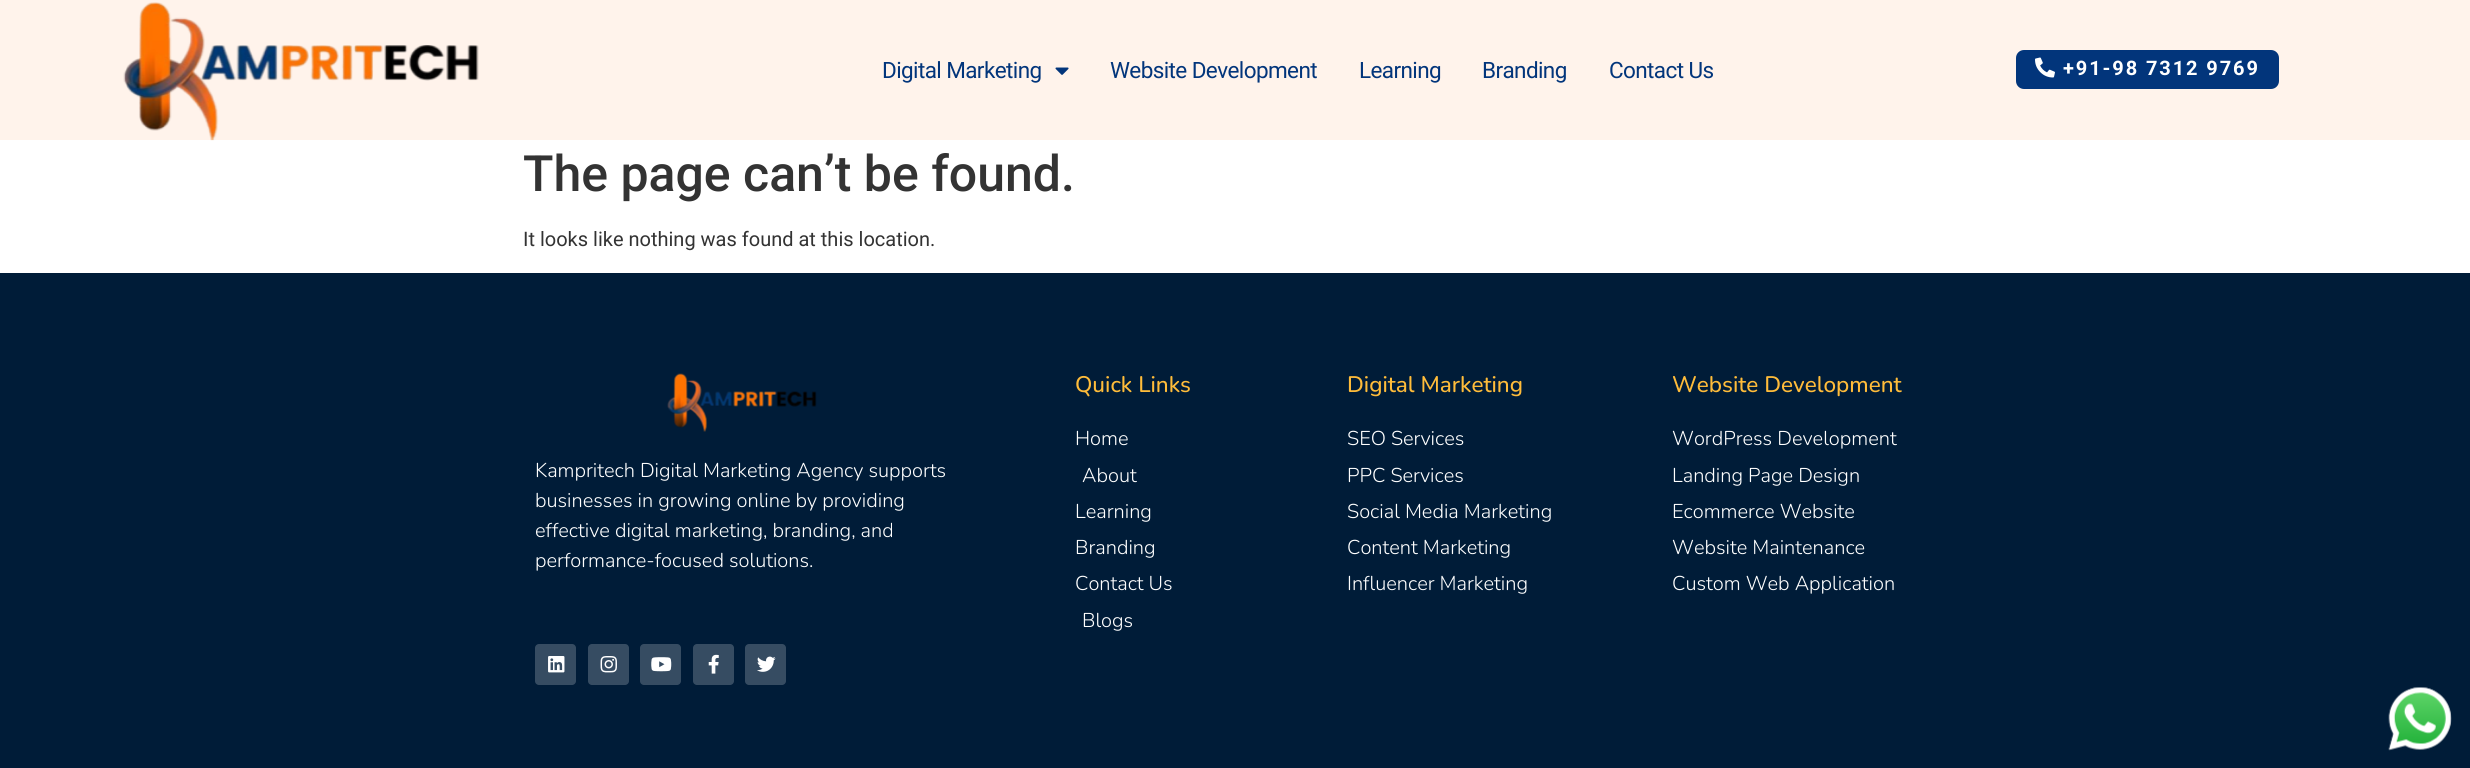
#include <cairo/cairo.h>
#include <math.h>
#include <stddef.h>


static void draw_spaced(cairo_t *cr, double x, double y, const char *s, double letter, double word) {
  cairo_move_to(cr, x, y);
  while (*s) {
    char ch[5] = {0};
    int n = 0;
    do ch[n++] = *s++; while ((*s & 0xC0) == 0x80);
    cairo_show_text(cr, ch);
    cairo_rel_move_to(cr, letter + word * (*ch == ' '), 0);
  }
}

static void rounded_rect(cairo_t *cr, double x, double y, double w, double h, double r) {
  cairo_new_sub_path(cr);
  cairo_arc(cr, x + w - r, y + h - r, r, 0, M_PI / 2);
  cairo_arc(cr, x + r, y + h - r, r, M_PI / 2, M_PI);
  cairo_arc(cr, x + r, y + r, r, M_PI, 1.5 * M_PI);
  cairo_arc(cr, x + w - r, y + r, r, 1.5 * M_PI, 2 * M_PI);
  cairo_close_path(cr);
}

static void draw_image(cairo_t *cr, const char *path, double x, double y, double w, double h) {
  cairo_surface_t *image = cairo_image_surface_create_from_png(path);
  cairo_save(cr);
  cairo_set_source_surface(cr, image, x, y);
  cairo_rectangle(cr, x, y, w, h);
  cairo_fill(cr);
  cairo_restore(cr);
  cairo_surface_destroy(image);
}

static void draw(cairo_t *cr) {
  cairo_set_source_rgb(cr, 1, 1, 1);
  cairo_paint(cr);
  cairo_set_source_rgb(cr, 1, 243 / 255.0, 235 / 255.0);
  cairo_rectangle(cr, 0, 0, 2470, 140);
  cairo_fill(cr);
  draw_image(cr, "images/1.png", 123, 2, 356, 139);
  draw_image(cr, "images/2.png", 1055, 67, 14, 8);
  cairo_set_source_rgb(cr, 2 / 255.0, 53 / 255.0, 123 / 255.0);
  rounded_rect(cr, 2016, 50, 263, 39, 8);
  cairo_fill(cr);
  draw_image(cr, "images/3.png", 2035, 57, 20, 21);
  cairo_set_source_rgb(cr, 0, 28 / 255.0, 56 / 255.0);
  cairo_rectangle(cr, 0, 273, 2470, 495);
  cairo_fill(cr);
  draw_image(cr, "images/4.png", 667, 373, 150, 59);
  cairo_set_source_rgb(cr, 54 / 255.0, 76 / 255.0, 98 / 255.0);
  rounded_rect(cr, 535, 644, 41, 41, 4);
  cairo_fill(cr);
  draw_image(cr, "images/5.png", 548, 656, 17, 17);
  rounded_rect(cr, 588, 644, 41, 41, 4);
  cairo_fill(cr);
  draw_image(cr, "images/6.png", 600, 656, 17, 17);
  rounded_rect(cr, 640, 644, 41, 41, 4);
  cairo_fill(cr);
  draw_image(cr, "images/7.png", 651, 657, 21, 15);
  rounded_rect(cr, 693, 644, 41, 41, 4);
  cairo_fill(cr);
  draw_image(cr, "images/8.png", 708, 654, 11, 20);
  rounded_rect(cr, 745, 644, 41, 41, 4);
  cairo_fill(cr);
  draw_image(cr, "images/9.png", 757, 656, 19, 16);
  draw_image(cr, "images/10.png", 2388, 687, 64, 64);
  cairo_select_font_face(cr, "Roboto", CAIRO_FONT_SLANT_NORMAL, CAIRO_FONT_WEIGHT_NORMAL);
  cairo_set_font_size(cr, 22.5);
  cairo_set_source_rgb(cr, 2 / 255.0, 53 / 255.0, 123 / 255.0);
  draw_spaced(cr, 882, 78, "Digital Marketing", -0.6, 0);
  draw_spaced(cr, 1110, 78, "Website Development", -0.6, 0);
  draw_spaced(cr, 1359, 78, "Learning", -0.6, 0);
  draw_spaced(cr, 1482, 78, "Branding", -0.6, 0);
  draw_spaced(cr, 1609, 78, "Contact Us", -0.6, 0);
  cairo_select_font_face(cr, "Roboto", CAIRO_FONT_SLANT_NORMAL, CAIRO_FONT_WEIGHT_BOLD);
  cairo_set_font_size(cr, 20);
  cairo_set_source_rgb(cr, 1, 1, 1);
  draw_spaced(cr, 2063, 75, "+91-98 7312 9769", 1.9, 0);
  cairo_select_font_face(cr, "Roboto Medium", CAIRO_FONT_SLANT_NORMAL, CAIRO_FONT_WEIGHT_NORMAL);
  cairo_set_font_size(cr, 50);
  cairo_set_source_rgb(cr, 51 / 255.0, 51 / 255.0, 51 / 255.0);
  cairo_move_to(cr, 523, 191);
  cairo_show_text(cr, "The page can’t be found.");
  cairo_select_font_face(cr, "Roboto", CAIRO_FONT_SLANT_NORMAL, CAIRO_FONT_WEIGHT_NORMAL);
  cairo_set_font_size(cr, 20);
  cairo_move_to(cr, 523, 246);
  cairo_show_text(cr, "It looks like nothing was found at this location.");
  cairo_select_font_face(cr, "Nunito Light", CAIRO_FONT_SLANT_NORMAL, CAIRO_FONT_WEIGHT_NORMAL);
  cairo_set_source_rgb(cr, 1, 1, 1);
  cairo_move_to(cr, 535, 477);
  cairo_show_text(cr, "Kampritech Digital Marketing Agency supports");
  cairo_move_to(cr, 535, 507);
  cairo_show_text(cr, "businesses in growing online by providing");
  cairo_move_to(cr, 535, 537);
  cairo_show_text(cr, "effective digital marketing, branding, and");
  cairo_move_to(cr, 535, 567);
  cairo_show_text(cr, "performance-focused solutions.");
  cairo_select_font_face(cr, "Nunito Medium", CAIRO_FONT_SLANT_NORMAL, CAIRO_FONT_WEIGHT_NORMAL);
  cairo_set_font_size(cr, 22.5);
  cairo_set_source_rgb(cr, 1, 188 / 255.0, 58 / 255.0);
  cairo_move_to(cr, 1075, 392);
  cairo_show_text(cr, "Quick Links");
  cairo_select_font_face(cr, "Nunito Light", CAIRO_FONT_SLANT_NORMAL, CAIRO_FONT_WEIGHT_NORMAL);
  cairo_set_font_size(cr, 20);
  cairo_set_source_rgb(cr, 1, 1, 1);
  cairo_move_to(cr, 1075, 445);
  cairo_show_text(cr, "Home");
  cairo_move_to(cr, 1082, 482);
  cairo_show_text(cr, "About");
  cairo_move_to(cr, 1075, 518);
  cairo_show_text(cr, "Learning");
  cairo_move_to(cr, 1075, 554);
  cairo_show_text(cr, "Branding");
  cairo_move_to(cr, 1075, 590);
  cairo_show_text(cr, "Contact Us");
  cairo_move_to(cr, 1082, 627);
  cairo_show_text(cr, "Blogs");
  cairo_select_font_face(cr, "Nunito Medium", CAIRO_FONT_SLANT_NORMAL, CAIRO_FONT_WEIGHT_NORMAL);
  cairo_set_font_size(cr, 22.5);
  cairo_set_source_rgb(cr, 1, 188 / 255.0, 58 / 255.0);
  cairo_move_to(cr, 1347, 392);
  cairo_show_text(cr, "Digital Marketing");
  cairo_select_font_face(cr, "Nunito Light", CAIRO_FONT_SLANT_NORMAL, CAIRO_FONT_WEIGHT_NORMAL);
  cairo_set_font_size(cr, 20);
  cairo_set_source_rgb(cr, 1, 1, 1);
  cairo_move_to(cr, 1347, 445);
  cairo_show_text(cr, "SEO Services");
  cairo_move_to(cr, 1347, 482);
  cairo_show_text(cr, "PPC Services");
  cairo_move_to(cr, 1347, 518);
  cairo_show_text(cr, "Social Media Marketing");
  cairo_move_to(cr, 1347, 554);
  cairo_show_text(cr, "Content Marketing");
  cairo_move_to(cr, 1347, 590);
  cairo_show_text(cr, "Influencer Marketing");
  cairo_select_font_face(cr, "Nunito Medium", CAIRO_FONT_SLANT_NORMAL, CAIRO_FONT_WEIGHT_NORMAL);
  cairo_set_font_size(cr, 22.5);
  cairo_set_source_rgb(cr, 1, 188 / 255.0, 58 / 255.0);
  cairo_move_to(cr, 1672, 392);
  cairo_show_text(cr, "Website Development");
  cairo_select_font_face(cr, "Nunito Light", CAIRO_FONT_SLANT_NORMAL, CAIRO_FONT_WEIGHT_NORMAL);
  cairo_set_font_size(cr, 20);
  cairo_set_source_rgb(cr, 1, 1, 1);
  cairo_move_to(cr, 1672, 445);
  cairo_show_text(cr, "WordPress Development");
  cairo_move_to(cr, 1672, 482);
  cairo_show_text(cr, "Landing Page Design");
  cairo_move_to(cr, 1672, 518);
  cairo_show_text(cr, "Ecommerce Website");
  cairo_move_to(cr, 1672, 554);
  cairo_show_text(cr, "Website Maintenance");
  cairo_move_to(cr, 1672, 590);
  cairo_show_text(cr, "Custom Web Application");
}

int main(void) {
  cairo_surface_t *surface = cairo_image_surface_create(CAIRO_FORMAT_RGB24, 2470, 768);
  cairo_t *cr = cairo_create(surface);
  cairo_font_options_t *options = cairo_font_options_create();
  cairo_font_options_set_hint_metrics(options, CAIRO_HINT_METRICS_OFF);
  cairo_font_options_set_hint_style(options, CAIRO_HINT_STYLE_NONE);
  cairo_set_font_options(cr, options);
  cairo_set_miter_limit(cr, 4);
  draw(cr);
  cairo_surface_write_to_png(surface, "out.png");
  cairo_font_options_destroy(options);
  cairo_destroy(cr);
  cairo_surface_destroy(surface);
  return 0;
}
